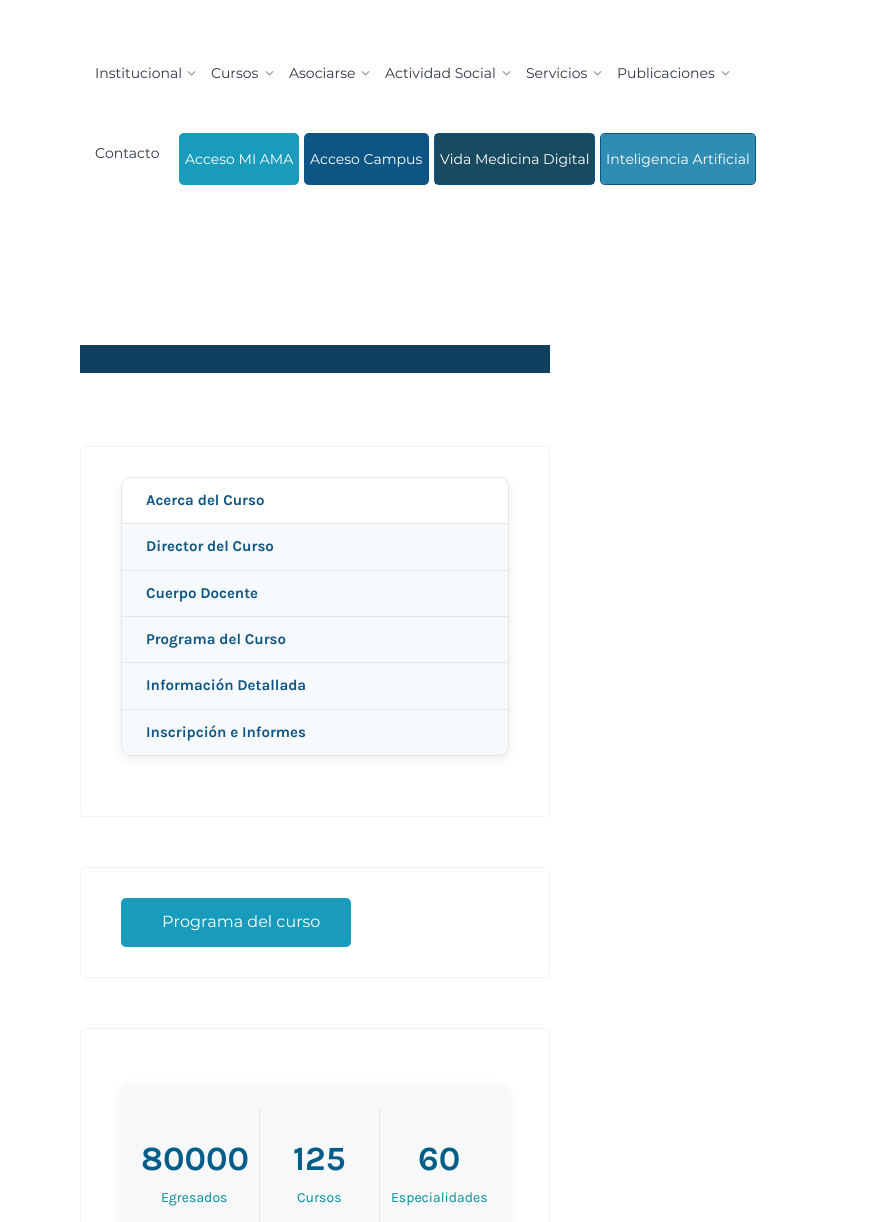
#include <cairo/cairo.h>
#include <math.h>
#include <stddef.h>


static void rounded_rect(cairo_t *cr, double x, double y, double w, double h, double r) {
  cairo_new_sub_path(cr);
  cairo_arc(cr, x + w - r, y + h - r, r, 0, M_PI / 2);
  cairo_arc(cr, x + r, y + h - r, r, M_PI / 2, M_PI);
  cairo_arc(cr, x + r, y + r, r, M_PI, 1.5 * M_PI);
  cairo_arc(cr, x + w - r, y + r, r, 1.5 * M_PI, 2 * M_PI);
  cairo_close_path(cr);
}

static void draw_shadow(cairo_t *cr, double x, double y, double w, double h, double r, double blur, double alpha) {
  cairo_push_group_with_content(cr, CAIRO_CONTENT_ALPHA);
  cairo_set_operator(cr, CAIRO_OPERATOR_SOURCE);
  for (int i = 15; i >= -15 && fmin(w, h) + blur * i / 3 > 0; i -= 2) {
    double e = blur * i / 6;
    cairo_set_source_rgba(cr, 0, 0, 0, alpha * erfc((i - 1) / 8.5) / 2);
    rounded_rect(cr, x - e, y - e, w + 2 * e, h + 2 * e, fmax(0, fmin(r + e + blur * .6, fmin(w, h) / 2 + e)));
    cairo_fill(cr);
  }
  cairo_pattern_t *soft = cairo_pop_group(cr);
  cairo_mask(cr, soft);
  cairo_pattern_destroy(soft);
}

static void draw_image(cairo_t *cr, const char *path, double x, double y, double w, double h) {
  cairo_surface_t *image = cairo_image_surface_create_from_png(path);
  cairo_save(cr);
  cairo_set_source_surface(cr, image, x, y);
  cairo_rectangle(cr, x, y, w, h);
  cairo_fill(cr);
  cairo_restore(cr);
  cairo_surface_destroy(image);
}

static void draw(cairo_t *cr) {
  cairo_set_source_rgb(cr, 1, 1, 1);
  cairo_paint(cr);
  draw_image(cr, "images/1.png", 187, 71, 9, 5);
  draw_image(cr, "images/1.png", 265, 71, 9, 5);
  draw_image(cr, "images/1.png", 361, 71, 9, 5);
  draw_image(cr, "images/1.png", 502, 71, 9, 5);
  draw_image(cr, "images/1.png", 593, 71, 9, 5);
  draw_image(cr, "images/1.png", 721, 71, 9, 5);
  cairo_set_source_rgb(cr, 25 / 255.0, 156 / 255.0, 187 / 255.0);
  rounded_rect(cr, 179, 133, 120, 52, 5);
  cairo_fill(cr);
  cairo_set_source_rgb(cr, 13 / 255.0, 85 / 255.0, 132 / 255.0);
  rounded_rect(cr, 304, 133, 125, 52, 5);
  cairo_fill(cr);
  rounded_rect(cr, 434, 133, 161, 52, 5);
  cairo_fill(cr);
  cairo_set_source_rgb(cr, 24 / 255.0, 75 / 255.0, 95 / 255.0);
  cairo_rectangle(cr, 435, 134, 159, 50);
  cairo_fill(cr);
  cairo_set_source_rgb(cr, 13 / 255.0, 85 / 255.0, 132 / 255.0);
  rounded_rect(cr, 600, 133, 156, 52, 5);
  cairo_fill(cr);
  cairo_set_source_rgb(cr, 47 / 255.0, 141 / 255.0, 179 / 255.0);
  cairo_rectangle(cr, 601, 134, 154, 50);
  cairo_fill(cr);
  cairo_set_source_rgb(cr, 15 / 255.0, 64 / 255.0, 96 / 255.0);
  cairo_rectangle(cr, 80, 345, 470, 28);
  cairo_fill(cr);
  rounded_rect(cr, 80.5, 446.5, 469, 370, 4.5);
  cairo_set_source_rgb(cr, 243 / 255.0, 243 / 255.0, 243 / 255.0);
  cairo_set_line_width(cr, 1);
  cairo_stroke(cr);
  cairo_set_source_rgb(cr, 0, 0, 0);
  draw_shadow(cr, 121, 481, 388, 279, 10, 6, 0.06);
  rounded_rect(cr, 121.5, 477.5, 387, 278, 9.5);
  cairo_set_source_rgb(cr, 227 / 255.0, 231 / 255.0, 234 / 255.0);
  cairo_stroke(cr);
  cairo_set_source_rgb(cr, 1, 1, 1);
  cairo_new_path(cr);
  cairo_move_to(cr, 131, 478);
  cairo_line_to(cr, 499, 478);
  cairo_curve_to(cr, 504, 478, 508, 482, 508, 487);
  cairo_line_to(cr, 508, 523);
  cairo_line_to(cr, 122, 523);
  cairo_line_to(cr, 122, 487);
  cairo_curve_to(cr, 122, 482, 126, 478, 131, 478);
  cairo_close_path(cr);
  cairo_fill(cr);
  cairo_set_source_rgb(cr, 227 / 255.0, 231 / 255.0, 234 / 255.0);
  cairo_rectangle(cr, 122, 523, 386, 1);
  cairo_fill(cr);
  cairo_set_source_rgb(cr, 247 / 255.0, 250 / 255.0, 252 / 255.0);
  cairo_rectangle(cr, 122, 524, 386, 46);
  cairo_fill(cr);
  cairo_set_source_rgb(cr, 227 / 255.0, 231 / 255.0, 234 / 255.0);
  cairo_rectangle(cr, 122, 570, 386, 1);
  cairo_fill(cr);
  cairo_set_source_rgb(cr, 247 / 255.0, 250 / 255.0, 252 / 255.0);
  cairo_rectangle(cr, 122, 571, 386, 45);
  cairo_fill(cr);
  cairo_set_source_rgb(cr, 227 / 255.0, 231 / 255.0, 234 / 255.0);
  cairo_rectangle(cr, 122, 616, 386, 1);
  cairo_fill(cr);
  cairo_set_source_rgb(cr, 247 / 255.0, 250 / 255.0, 252 / 255.0);
  cairo_rectangle(cr, 122, 617, 386, 45);
  cairo_fill(cr);
  cairo_set_source_rgb(cr, 227 / 255.0, 231 / 255.0, 234 / 255.0);
  cairo_rectangle(cr, 122, 662, 386, 1);
  cairo_fill(cr);
  cairo_set_source_rgb(cr, 247 / 255.0, 250 / 255.0, 252 / 255.0);
  cairo_rectangle(cr, 122, 663, 386, 46);
  cairo_fill(cr);
  cairo_set_source_rgb(cr, 227 / 255.0, 231 / 255.0, 234 / 255.0);
  cairo_rectangle(cr, 122, 709, 386, 1);
  cairo_fill(cr);
  cairo_set_source_rgb(cr, 247 / 255.0, 250 / 255.0, 252 / 255.0);
  cairo_new_path(cr);
  cairo_move_to(cr, 122, 710);
  cairo_line_to(cr, 508, 710);
  cairo_line_to(cr, 508, 746);
  cairo_curve_to(cr, 508, 751, 504, 755, 499, 755);
  cairo_line_to(cr, 131, 755);
  cairo_curve_to(cr, 126, 755, 122, 751, 122, 746);
  cairo_close_path(cr);
  cairo_fill(cr);
  rounded_rect(cr, 80.5, 867.5, 469, 110, 4.5);
  cairo_set_source_rgb(cr, 243 / 255.0, 243 / 255.0, 243 / 255.0);
  cairo_stroke(cr);
  cairo_set_source_rgb(cr, 25 / 255.0, 156 / 255.0, 187 / 255.0);
  rounded_rect(cr, 121, 898, 230, 49, 5);
  cairo_fill(cr);
  rounded_rect(cr, 80.5, 1028.5, 469, 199, 4.5);
  cairo_set_source_rgb(cr, 243 / 255.0, 243 / 255.0, 243 / 255.0);
  cairo_stroke(cr);
  cairo_set_source_rgb(cr, 0, 0, 0);
  draw_shadow(cr, 121, 1088, 388, 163, 8, 7, 0.06);
  cairo_set_source_rgb(cr, 247 / 255.0, 248 / 255.0, 250 / 255.0);
  rounded_rect(cr, 121, 1084, 388, 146, 8);
  cairo_fill(cr);
  cairo_set_source_rgb(cr, 228 / 255.0, 231 / 255.0, 234 / 255.0);
  cairo_rectangle(cr, 259, 1109, 1, 113);
  cairo_fill(cr);
  cairo_rectangle(cr, 379, 1109, 1, 113);
  cairo_fill(cr);
  cairo_select_font_face(cr, "Montserrat", CAIRO_FONT_SLANT_NORMAL, CAIRO_FONT_WEIGHT_NORMAL);
  cairo_set_font_size(cr, 14);
  cairo_set_source_rgb(cr, 45 / 255.0, 53 / 255.0, 66 / 255.0);
  cairo_move_to(cr, 95, 78);
  cairo_show_text(cr, "Institucional");
  cairo_move_to(cr, 211, 78);
  cairo_show_text(cr, "Cursos");
  cairo_move_to(cr, 289, 78);
  cairo_show_text(cr, "Asociarse");
  cairo_move_to(cr, 385, 78);
  cairo_show_text(cr, "Actividad Social");
  cairo_move_to(cr, 526, 78);
  cairo_show_text(cr, "Servicios");
  cairo_move_to(cr, 617, 78);
  cairo_show_text(cr, "Publicaciones");
  cairo_move_to(cr, 95, 158);
  cairo_show_text(cr, "Contacto");
  cairo_set_source_rgb(cr, 1, 1, 1);
  cairo_move_to(cr, 185, 164);
  cairo_show_text(cr, "Acceso MI AMA");
  cairo_move_to(cr, 310, 164);
  cairo_show_text(cr, "Acceso Campus");
  cairo_move_to(cr, 440, 164);
  cairo_show_text(cr, "Vida Medicina Digital");
  cairo_move_to(cr, 606, 164);
  cairo_show_text(cr, "Inteligencia Artificial");
  cairo_select_font_face(cr, "Karla", CAIRO_FONT_SLANT_NORMAL, CAIRO_FONT_WEIGHT_BOLD);
  cairo_set_font_size(cr, 15);
  cairo_set_source_rgb(cr, 13 / 255.0, 85 / 255.0, 132 / 255.0);
  cairo_move_to(cr, 146, 505);
  cairo_show_text(cr, "Acerca del Curso");
  cairo_move_to(cr, 146, 551);
  cairo_show_text(cr, "Director del Curso");
  cairo_move_to(cr, 146, 598);
  cairo_show_text(cr, "Cuerpo Docente");
  cairo_move_to(cr, 146, 644);
  cairo_show_text(cr, "Programa del Curso");
  cairo_move_to(cr, 146, 690);
  cairo_show_text(cr, "Información Detallada");
  cairo_move_to(cr, 146, 737);
  cairo_show_text(cr, "Inscripción e Informes");
  cairo_select_font_face(cr, "Montserrat", CAIRO_FONT_SLANT_NORMAL, CAIRO_FONT_WEIGHT_NORMAL);
  cairo_set_font_size(cr, 16);
  cairo_set_source_rgb(cr, 1, 1, 1);
  cairo_move_to(cr, 162, 927);
  cairo_show_text(cr, "Programa del curso");
  cairo_select_font_face(cr, "Karla", CAIRO_FONT_SLANT_NORMAL, CAIRO_FONT_WEIGHT_BOLD);
  cairo_set_font_size(cr, 34);
  cairo_set_source_rgb(cr, 0, 93 / 255.0, 138 / 255.0);
  cairo_move_to(cr, 141, 1170);
  cairo_show_text(cr, "80000");
  cairo_select_font_face(cr, "Karla", CAIRO_FONT_SLANT_NORMAL, CAIRO_FONT_WEIGHT_NORMAL);
  cairo_set_font_size(cr, 14);
  cairo_set_source_rgb(cr, 0, 140 / 255.0, 156 / 255.0);
  cairo_move_to(cr, 161, 1202);
  cairo_show_text(cr, "Egresados");
  cairo_select_font_face(cr, "Karla", CAIRO_FONT_SLANT_NORMAL, CAIRO_FONT_WEIGHT_BOLD);
  cairo_set_font_size(cr, 34);
  cairo_set_source_rgb(cr, 0, 93 / 255.0, 138 / 255.0);
  cairo_move_to(cr, 293, 1170);
  cairo_show_text(cr, "125");
  cairo_select_font_face(cr, "Karla", CAIRO_FONT_SLANT_NORMAL, CAIRO_FONT_WEIGHT_NORMAL);
  cairo_set_font_size(cr, 14);
  cairo_set_source_rgb(cr, 0, 140 / 255.0, 156 / 255.0);
  cairo_move_to(cr, 297, 1202);
  cairo_show_text(cr, "Cursos");
  cairo_select_font_face(cr, "Karla", CAIRO_FONT_SLANT_NORMAL, CAIRO_FONT_WEIGHT_BOLD);
  cairo_set_font_size(cr, 34);
  cairo_set_source_rgb(cr, 0, 93 / 255.0, 138 / 255.0);
  cairo_move_to(cr, 418, 1170);
  cairo_show_text(cr, "60");
  cairo_select_font_face(cr, "Karla", CAIRO_FONT_SLANT_NORMAL, CAIRO_FONT_WEIGHT_NORMAL);
  cairo_set_font_size(cr, 14);
  cairo_set_source_rgb(cr, 0, 140 / 255.0, 156 / 255.0);
  cairo_move_to(cr, 391, 1202);
  cairo_show_text(cr, "Especialidades");
}

int main(void) {
  cairo_surface_t *surface = cairo_image_surface_create(CAIRO_FORMAT_RGB24, 879, 1222);
  cairo_t *cr = cairo_create(surface);
  cairo_font_options_t *options = cairo_font_options_create();
  cairo_font_options_set_hint_metrics(options, CAIRO_HINT_METRICS_OFF);
  cairo_font_options_set_hint_style(options, CAIRO_HINT_STYLE_NONE);
  cairo_set_font_options(cr, options);
  cairo_set_miter_limit(cr, 4);
  draw(cr);
  cairo_surface_write_to_png(surface, "out.png");
  cairo_font_options_destroy(options);
  cairo_destroy(cr);
  cairo_surface_destroy(surface);
  return 0;
}
